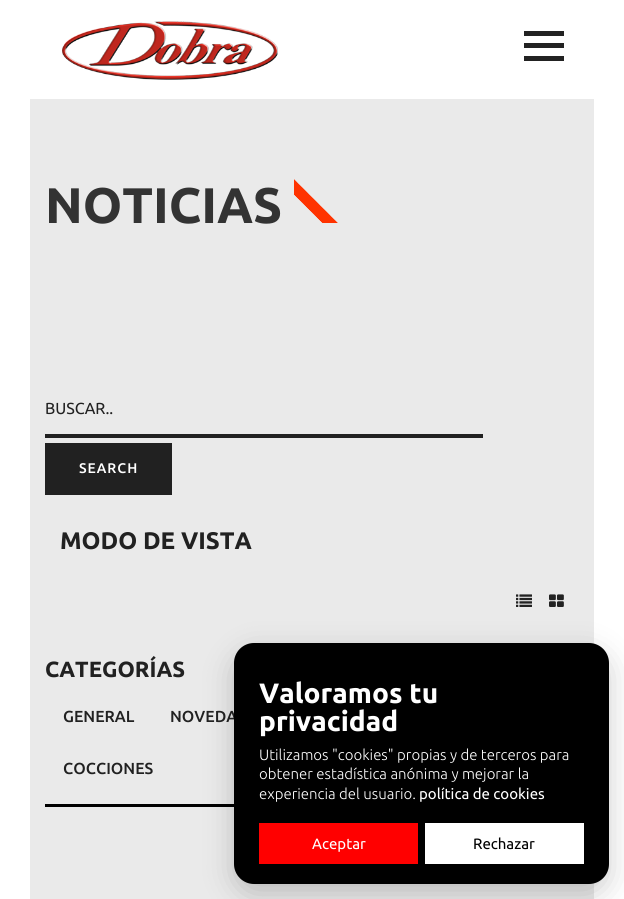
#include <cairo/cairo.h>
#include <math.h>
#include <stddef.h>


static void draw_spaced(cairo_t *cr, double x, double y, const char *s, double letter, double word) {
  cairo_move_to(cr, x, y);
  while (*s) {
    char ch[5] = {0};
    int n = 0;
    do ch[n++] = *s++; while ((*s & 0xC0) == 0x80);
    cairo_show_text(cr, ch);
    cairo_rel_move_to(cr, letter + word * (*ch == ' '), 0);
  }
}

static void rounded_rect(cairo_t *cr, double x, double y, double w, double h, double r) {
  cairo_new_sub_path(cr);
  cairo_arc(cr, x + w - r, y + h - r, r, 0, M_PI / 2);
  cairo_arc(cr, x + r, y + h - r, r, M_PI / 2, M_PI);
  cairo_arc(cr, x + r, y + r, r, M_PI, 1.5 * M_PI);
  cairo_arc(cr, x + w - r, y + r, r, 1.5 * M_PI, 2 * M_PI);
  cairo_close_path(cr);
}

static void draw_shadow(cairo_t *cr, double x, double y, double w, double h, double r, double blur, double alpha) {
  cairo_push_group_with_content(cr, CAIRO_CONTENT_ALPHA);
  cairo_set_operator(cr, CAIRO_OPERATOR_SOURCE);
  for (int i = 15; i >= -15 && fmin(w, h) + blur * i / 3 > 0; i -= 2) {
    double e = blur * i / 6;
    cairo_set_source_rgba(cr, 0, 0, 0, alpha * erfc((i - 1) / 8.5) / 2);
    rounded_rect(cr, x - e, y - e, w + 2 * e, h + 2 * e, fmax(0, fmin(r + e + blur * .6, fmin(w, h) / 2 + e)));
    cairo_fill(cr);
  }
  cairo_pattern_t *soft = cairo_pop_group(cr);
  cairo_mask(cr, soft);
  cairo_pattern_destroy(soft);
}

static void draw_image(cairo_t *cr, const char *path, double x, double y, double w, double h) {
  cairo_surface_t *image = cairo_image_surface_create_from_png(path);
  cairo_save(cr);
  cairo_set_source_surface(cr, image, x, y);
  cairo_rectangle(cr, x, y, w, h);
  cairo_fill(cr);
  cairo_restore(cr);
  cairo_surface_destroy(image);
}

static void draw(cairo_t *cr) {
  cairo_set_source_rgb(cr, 1, 1, 1);
  cairo_paint(cr);
  cairo_set_source_rgb(cr, 234 / 255.0, 234 / 255.0, 234 / 255.0);
  cairo_rectangle(cr, 30, 99, 564, 800);
  cairo_fill(cr);
  draw_image(cr, "images/1.png", 62, 21, 216, 59);
  cairo_set_source_rgb(cr, 34 / 255.0, 34 / 255.0, 34 / 255.0);
  cairo_rectangle(cr, 524, 31, 40, 5);
  cairo_fill(cr);
  cairo_rectangle(cr, 524, 43, 40, 5);
  cairo_fill(cr);
  cairo_rectangle(cr, 524, 56, 40, 5);
  cairo_fill(cr);
  draw_image(cr, "images/2.png", 294, 179, 44, 44);
  cairo_set_source_rgb(cr, 33 / 255.0, 33 / 255.0, 33 / 255.0);
  cairo_rectangle(cr, 45, 434, 438, 4);
  cairo_fill(cr);
  cairo_rectangle(cr, 45, 443, 127, 52);
  cairo_fill(cr);
  draw_image(cr, "images/3.png", 516, 594, 16, 13);
  draw_image(cr, "images/4.png", 549, 594, 15, 13);
  cairo_set_source_rgb(cr, 0, 0, 0);
  cairo_rectangle(cr, 45, 804, 189, 3);
  cairo_fill(cr);
  cairo_set_source_rgb(cr, 2 / 255.0, 2 / 255.0, 3 / 255.0);
  draw_shadow(cr, 234, 653, 375, 241, 20, 15, 0.2);
  cairo_select_font_face(cr, "Ubuntu", CAIRO_FONT_SLANT_NORMAL, CAIRO_FONT_WEIGHT_BOLD);
  cairo_set_font_size(cr, 50);
  cairo_set_source_rgb(cr, 51 / 255.0, 51 / 255.0, 51 / 255.0);
  cairo_move_to(cr, 45, 223);
  cairo_show_text(cr, "NOTICIAS");
  cairo_select_font_face(cr, "Ubuntu", CAIRO_FONT_SLANT_NORMAL, CAIRO_FONT_WEIGHT_NORMAL);
  cairo_set_font_size(cr, 16);
  cairo_set_source_rgb(cr, 33 / 255.0, 33 / 255.0, 33 / 255.0);
  cairo_move_to(cr, 45, 414);
  cairo_show_text(cr, "BUSCAR..");
  cairo_select_font_face(cr, "Ubuntu Medium", CAIRO_FONT_SLANT_NORMAL, CAIRO_FONT_WEIGHT_NORMAL);
  cairo_set_font_size(cr, 14);
  cairo_set_source_rgb(cr, 1, 1, 1);
  draw_spaced(cr, 79, 473, "SEARCH", 1, 0);
  cairo_select_font_face(cr, "Ubuntu", CAIRO_FONT_SLANT_NORMAL, CAIRO_FONT_WEIGHT_BOLD);
  cairo_set_font_size(cr, 24);
  cairo_set_source_rgb(cr, 33 / 255.0, 33 / 255.0, 33 / 255.0);
  cairo_move_to(cr, 60, 549);
  cairo_show_text(cr, "MODO DE VISTA");
  cairo_set_font_size(cr, 22);
  cairo_move_to(cr, 45, 677);
  cairo_show_text(cr, "CATEGORÍAS");
  cairo_select_font_face(cr, "Ubuntu Medium", CAIRO_FONT_SLANT_NORMAL, CAIRO_FONT_WEIGHT_NORMAL);
  cairo_set_font_size(cr, 16);
  cairo_move_to(cr, 63, 722);
  cairo_show_text(cr, "GENERAL");
  cairo_move_to(cr, 170, 722);
  cairo_show_text(cr, "NOVEDA");
  cairo_move_to(cr, 63, 774);
  cairo_show_text(cr, "COCCIONES");
  cairo_set_source_rgb(cr, 0, 0, 0);
  rounded_rect(cr, 234, 643, 375, 241, 20);
  cairo_fill(cr);
  cairo_select_font_face(cr, "Ubuntu", CAIRO_FONT_SLANT_NORMAL, CAIRO_FONT_WEIGHT_BOLD);
  cairo_set_font_size(cr, 28);
  cairo_set_source_rgb(cr, 1, 1, 1);
  cairo_move_to(cr, 259, 703);
  cairo_show_text(cr, "Valoramos tu");
  cairo_move_to(cr, 259, 731);
  cairo_show_text(cr, "privacidad");
  cairo_select_font_face(cr, "Ubuntu Light", CAIRO_FONT_SLANT_NORMAL, CAIRO_FONT_WEIGHT_NORMAL);
  cairo_set_font_size(cr, 15);
  cairo_move_to(cr, 259, 760);
  cairo_show_text(cr, "Utilizamos \"cookies\" propias y de terceros para");
  cairo_move_to(cr, 259, 779);
  cairo_show_text(cr, "obtener estadística anónima y mejorar la");
  cairo_move_to(cr, 259, 799);
  cairo_show_text(cr, "experiencia del usuario.");
  cairo_select_font_face(cr, "Ubuntu", CAIRO_FONT_SLANT_NORMAL, CAIRO_FONT_WEIGHT_NORMAL);
  cairo_move_to(cr, 419, 799);
  cairo_show_text(cr, "política de cookies");
  cairo_set_source_rgb(cr, 1, 0, 0);
  cairo_rectangle(cr, 259, 823, 159, 41);
  cairo_fill(cr);
  cairo_set_source_rgb(cr, 1, 1, 1);
  cairo_move_to(cr, 312, 849);
  cairo_show_text(cr, "Aceptar");
  cairo_rectangle(cr, 425, 823, 159, 41);
  cairo_fill(cr);
  cairo_set_source_rgb(cr, 0, 0, 0);
  cairo_move_to(cr, 473, 849);
  cairo_show_text(cr, "Rechazar");
}

int main(void) {
  cairo_surface_t *surface = cairo_image_surface_create(CAIRO_FORMAT_RGB24, 624, 899);
  cairo_t *cr = cairo_create(surface);
  cairo_font_options_t *options = cairo_font_options_create();
  cairo_font_options_set_hint_metrics(options, CAIRO_HINT_METRICS_OFF);
  cairo_font_options_set_hint_style(options, CAIRO_HINT_STYLE_NONE);
  cairo_set_font_options(cr, options);
  cairo_set_miter_limit(cr, 4);
  draw(cr);
  cairo_surface_write_to_png(surface, "out.png");
  cairo_font_options_destroy(options);
  cairo_destroy(cr);
  cairo_surface_destroy(surface);
  return 0;
}
